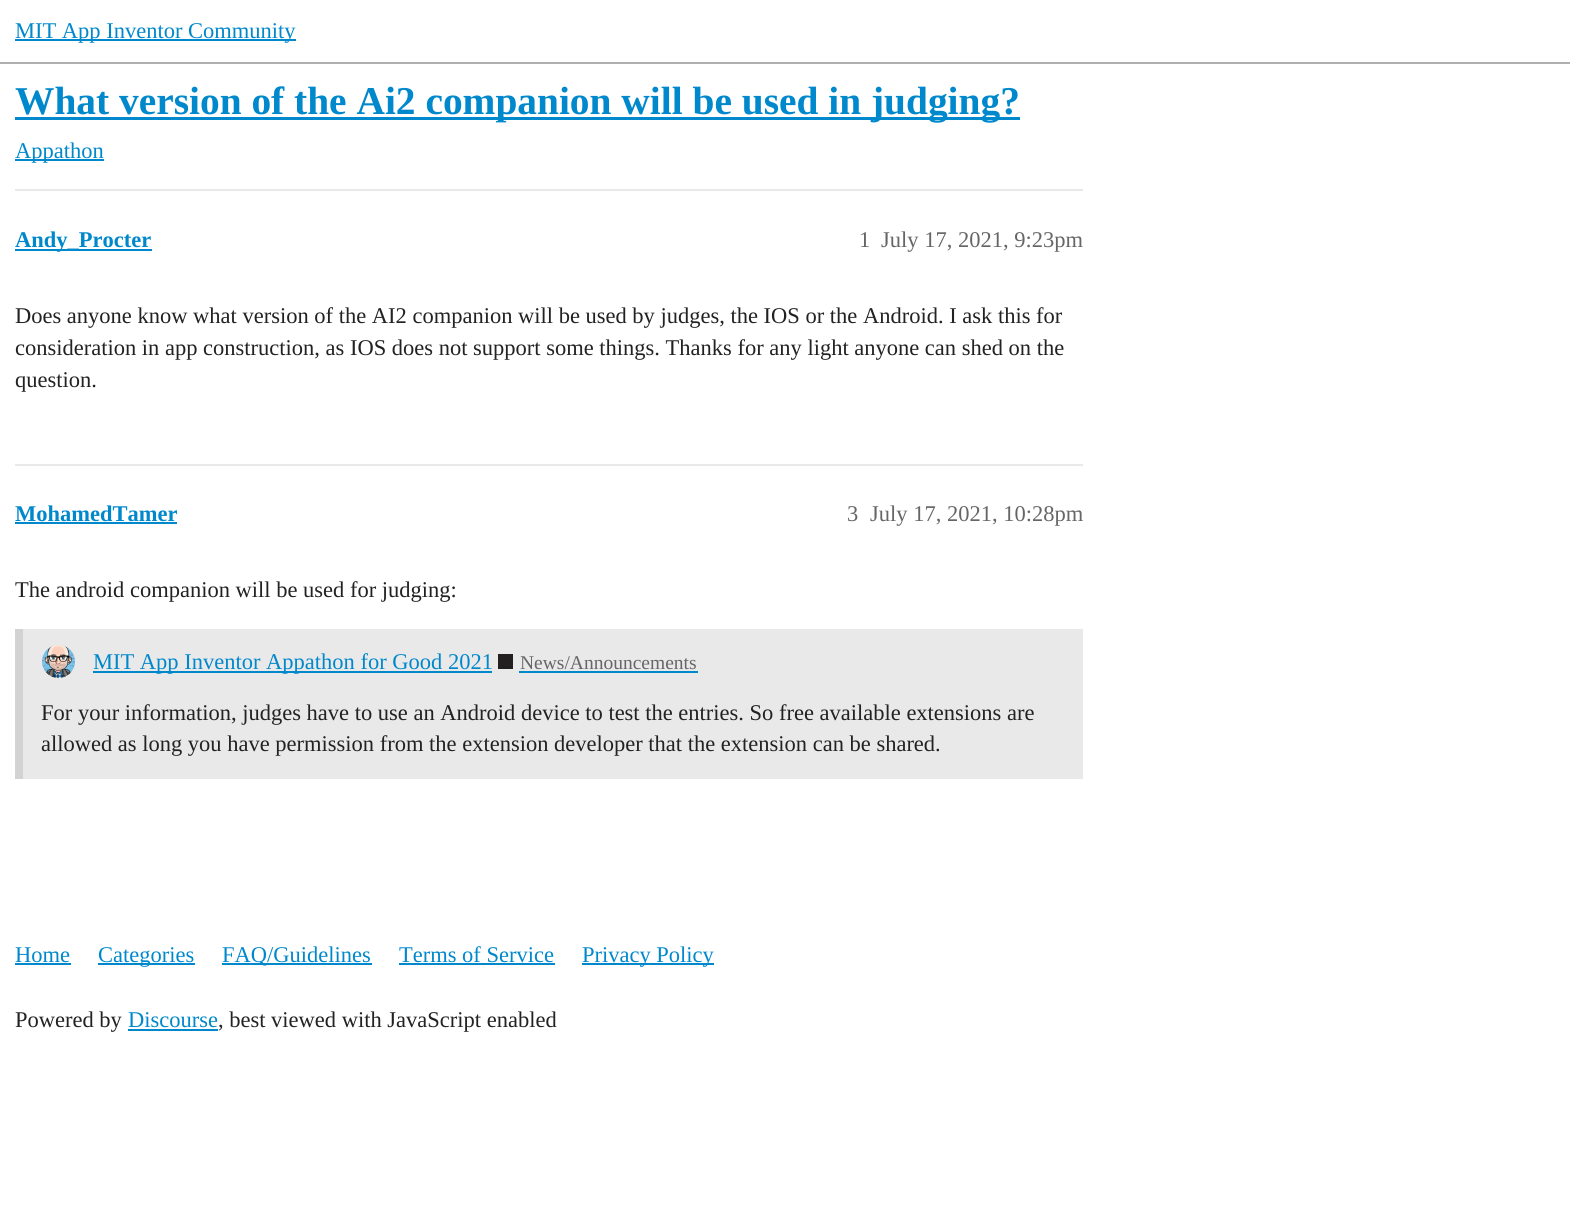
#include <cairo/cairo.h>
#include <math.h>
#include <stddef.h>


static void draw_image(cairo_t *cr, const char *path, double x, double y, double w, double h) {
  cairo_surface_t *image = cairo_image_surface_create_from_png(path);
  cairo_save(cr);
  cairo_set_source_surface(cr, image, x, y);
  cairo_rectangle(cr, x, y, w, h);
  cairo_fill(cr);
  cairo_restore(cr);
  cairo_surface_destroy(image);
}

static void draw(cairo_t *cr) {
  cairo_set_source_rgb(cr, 1, 1, 1);
  cairo_paint(cr);
  cairo_set_source_rgb(cr, 175 / 255.0, 175 / 255.0, 175 / 255.0);
  cairo_rectangle(cr, 0, 62, 1570, 2);
  cairo_fill(cr);
  cairo_set_source_rgb(cr, 0, 136 / 255.0, 204 / 255.0);
  cairo_rectangle(cr, 15, 39, 281, 2);
  cairo_fill(cr);
  cairo_rectangle(cr, 15, 117, 1005, 3);
  cairo_fill(cr);
  cairo_rectangle(cr, 15, 159, 89, 2);
  cairo_fill(cr);
  cairo_set_source_rgb(cr, 233 / 255.0, 233 / 255.0, 233 / 255.0);
  cairo_rectangle(cr, 15, 189, 1068, 2);
  cairo_fill(cr);
  cairo_set_source_rgb(cr, 0, 136 / 255.0, 204 / 255.0);
  cairo_rectangle(cr, 15, 249, 137, 2);
  cairo_fill(cr);
  cairo_set_source_rgb(cr, 233 / 255.0, 233 / 255.0, 233 / 255.0);
  cairo_rectangle(cr, 15, 464, 1068, 2);
  cairo_fill(cr);
  cairo_set_source_rgb(cr, 0, 136 / 255.0, 204 / 255.0);
  cairo_rectangle(cr, 15, 522, 162, 2);
  cairo_fill(cr);
  cairo_set_source_rgb(cr, 233 / 255.0, 233 / 255.0, 233 / 255.0);
  cairo_rectangle(cr, 23, 629, 1060, 150);
  cairo_fill(cr);
  cairo_set_source_rgb(cr, 211 / 255.0, 211 / 255.0, 211 / 255.0);
  cairo_rectangle(cr, 15, 629, 8, 150);
  cairo_fill(cr);
  draw_image(cr, "images/1.png", 42, 645, 33, 33);
  cairo_set_source_rgb(cr, 0, 136 / 255.0, 204 / 255.0);
  cairo_rectangle(cr, 93, 671, 399, 2);
  cairo_fill(cr);
  cairo_set_source_rgb(cr, 35 / 255.0, 31 / 255.0, 32 / 255.0);
  cairo_rectangle(cr, 498, 654, 15, 15);
  cairo_fill(cr);
  cairo_set_source_rgb(cr, 0, 136 / 255.0, 204 / 255.0);
  cairo_rectangle(cr, 519, 671, 179, 2);
  cairo_fill(cr);
  cairo_rectangle(cr, 15, 963, 56, 2);
  cairo_fill(cr);
  cairo_rectangle(cr, 98, 963, 97, 2);
  cairo_fill(cr);
  cairo_rectangle(cr, 222, 963, 150, 2);
  cairo_fill(cr);
  cairo_rectangle(cr, 399, 963, 156, 2);
  cairo_fill(cr);
  cairo_rectangle(cr, 582, 963, 132, 2);
  cairo_fill(cr);
  cairo_rectangle(cr, 128, 1029, 90, 2);
  cairo_fill(cr);
  cairo_select_font_face(cr, "Liberation Serif", CAIRO_FONT_SLANT_NORMAL, CAIRO_FONT_WEIGHT_NORMAL);
  cairo_set_font_size(cr, 22.5);
  cairo_move_to(cr, 15, 38);
  cairo_show_text(cr, "MIT App Inventor Community");
  cairo_select_font_face(cr, "Liberation Serif", CAIRO_FONT_SLANT_NORMAL, CAIRO_FONT_WEIGHT_BOLD);
  cairo_set_font_size(cr, 39.4);
  cairo_move_to(cr, 15, 114);
  cairo_show_text(cr, "What version of the Ai2 companion will be used in judging?");
  cairo_select_font_face(cr, "Liberation Serif", CAIRO_FONT_SLANT_NORMAL, CAIRO_FONT_WEIGHT_NORMAL);
  cairo_set_font_size(cr, 22.5);
  cairo_move_to(cr, 15, 158);
  cairo_show_text(cr, "Appathon");
  cairo_select_font_face(cr, "Liberation Serif", CAIRO_FONT_SLANT_NORMAL, CAIRO_FONT_WEIGHT_BOLD);
  cairo_move_to(cr, 15, 247);
  cairo_show_text(cr, "Andy_Procter");
  cairo_select_font_face(cr, "Liberation Serif", CAIRO_FONT_SLANT_NORMAL, CAIRO_FONT_WEIGHT_NORMAL);
  cairo_set_source_rgb(cr, 102 / 255.0, 102 / 255.0, 102 / 255.0);
  cairo_move_to(cr, 859, 247);
  cairo_show_text(cr, "1");
  cairo_move_to(cr, 881, 247);
  cairo_show_text(cr, "July 17, 2021, 9:23pm");
  cairo_set_source_rgb(cr, 34 / 255.0, 34 / 255.0, 34 / 255.0);
  cairo_move_to(cr, 15, 323);
  cairo_show_text(cr, "Does anyone know what version of the AI2 companion will be used by judges, the IOS or the Android. I ask this for");
  cairo_move_to(cr, 15, 355);
  cairo_show_text(cr, "consideration in app construction, as IOS does not support some things. Thanks for any light anyone can shed on the");
  cairo_move_to(cr, 15, 387);
  cairo_show_text(cr, "question.");
  cairo_select_font_face(cr, "Liberation Serif", CAIRO_FONT_SLANT_NORMAL, CAIRO_FONT_WEIGHT_BOLD);
  cairo_set_source_rgb(cr, 0, 136 / 255.0, 204 / 255.0);
  cairo_move_to(cr, 15, 521);
  cairo_show_text(cr, "MohamedTamer");
  cairo_select_font_face(cr, "Liberation Serif", CAIRO_FONT_SLANT_NORMAL, CAIRO_FONT_WEIGHT_NORMAL);
  cairo_set_source_rgb(cr, 102 / 255.0, 102 / 255.0, 102 / 255.0);
  cairo_move_to(cr, 847, 521);
  cairo_show_text(cr, "3");
  cairo_move_to(cr, 870, 521);
  cairo_show_text(cr, "July 17, 2021, 10:28pm");
  cairo_set_source_rgb(cr, 34 / 255.0, 34 / 255.0, 34 / 255.0);
  cairo_move_to(cr, 15, 597);
  cairo_show_text(cr, "The android companion will be used for judging:");
  cairo_set_source_rgb(cr, 0, 136 / 255.0, 204 / 255.0);
  cairo_move_to(cr, 93, 669);
  cairo_show_text(cr, "MIT App Inventor Appathon for Good 2021");
  cairo_set_font_size(cr, 19.5);
  cairo_set_source_rgb(cr, 102 / 255.0, 102 / 255.0, 102 / 255.0);
  cairo_move_to(cr, 520, 669);
  cairo_show_text(cr, "News/Announcements");
  cairo_set_font_size(cr, 22.5);
  cairo_set_source_rgb(cr, 34 / 255.0, 34 / 255.0, 34 / 255.0);
  cairo_move_to(cr, 41, 720);
  cairo_show_text(cr, "For your information, judges have to use an Android device to test the entries. So free available extensions are");
  cairo_move_to(cr, 41, 751);
  cairo_show_text(cr, "allowed as long you have permission from the extension developer that the extension can be shared.");
  cairo_set_source_rgb(cr, 0, 136 / 255.0, 204 / 255.0);
  cairo_move_to(cr, 15, 962);
  cairo_show_text(cr, "Home");
  cairo_move_to(cr, 98, 962);
  cairo_show_text(cr, "Categories");
  cairo_move_to(cr, 222, 962);
  cairo_show_text(cr, "FAQ/Guidelines");
  cairo_move_to(cr, 399, 962);
  cairo_show_text(cr, "Terms of Service");
  cairo_move_to(cr, 582, 962);
  cairo_show_text(cr, "Privacy Policy");
  cairo_set_source_rgb(cr, 34 / 255.0, 34 / 255.0, 34 / 255.0);
  cairo_move_to(cr, 15, 1027);
  cairo_show_text(cr, "Powered by");
  cairo_set_source_rgb(cr, 0, 136 / 255.0, 204 / 255.0);
  cairo_move_to(cr, 128, 1027);
  cairo_show_text(cr, "Discourse");
  cairo_set_source_rgb(cr, 34 / 255.0, 34 / 255.0, 34 / 255.0);
  cairo_move_to(cr, 218, 1027);
  cairo_show_text(cr, ", best viewed with JavaScript enabled");
}

int main(void) {
  cairo_surface_t *surface = cairo_image_surface_create(CAIRO_FORMAT_RGB24, 1570, 1212);
  cairo_t *cr = cairo_create(surface);
  cairo_font_options_t *options = cairo_font_options_create();
  cairo_font_options_set_hint_metrics(options, CAIRO_HINT_METRICS_OFF);
  cairo_font_options_set_hint_style(options, CAIRO_HINT_STYLE_NONE);
  cairo_set_font_options(cr, options);
  cairo_set_miter_limit(cr, 4);
  draw(cr);
  cairo_surface_write_to_png(surface, "out.png");
  cairo_font_options_destroy(options);
  cairo_destroy(cr);
  cairo_surface_destroy(surface);
  return 0;
}
